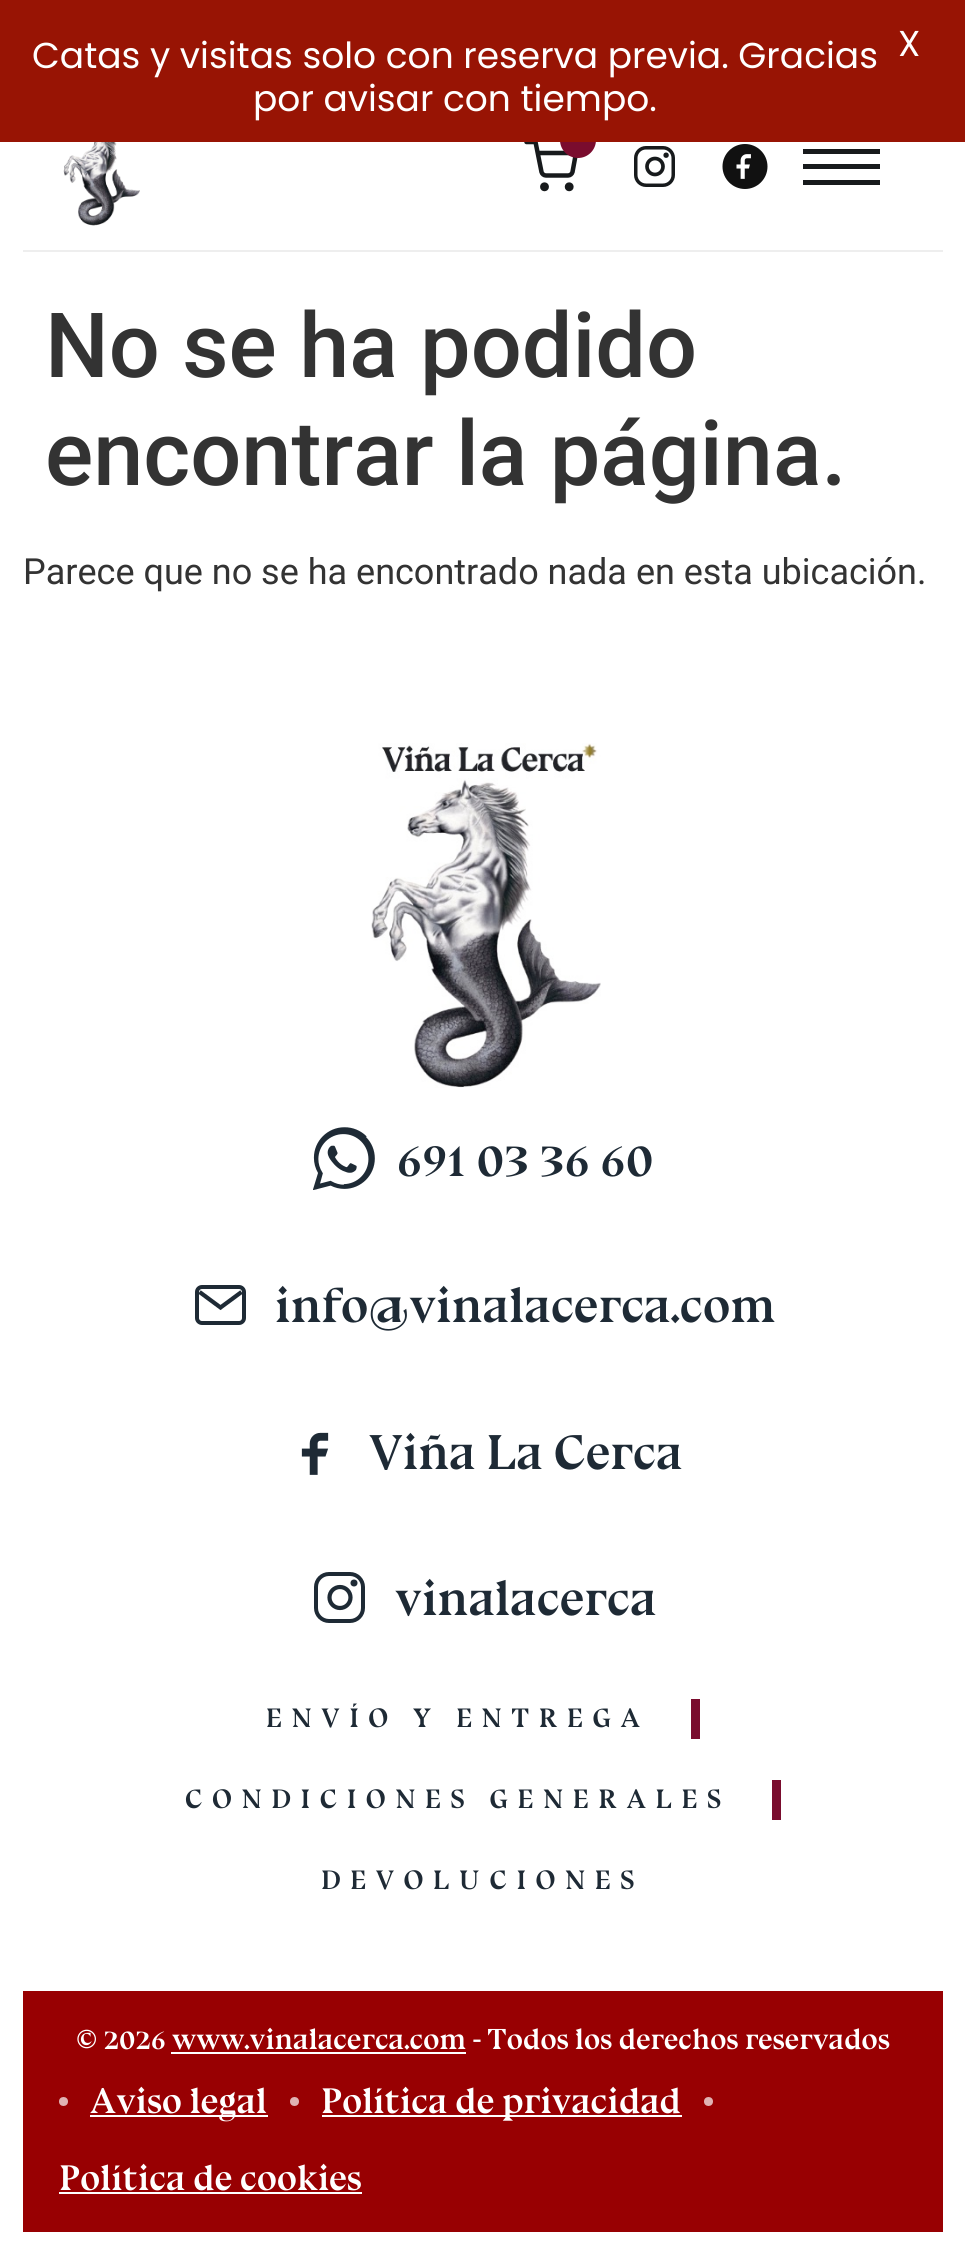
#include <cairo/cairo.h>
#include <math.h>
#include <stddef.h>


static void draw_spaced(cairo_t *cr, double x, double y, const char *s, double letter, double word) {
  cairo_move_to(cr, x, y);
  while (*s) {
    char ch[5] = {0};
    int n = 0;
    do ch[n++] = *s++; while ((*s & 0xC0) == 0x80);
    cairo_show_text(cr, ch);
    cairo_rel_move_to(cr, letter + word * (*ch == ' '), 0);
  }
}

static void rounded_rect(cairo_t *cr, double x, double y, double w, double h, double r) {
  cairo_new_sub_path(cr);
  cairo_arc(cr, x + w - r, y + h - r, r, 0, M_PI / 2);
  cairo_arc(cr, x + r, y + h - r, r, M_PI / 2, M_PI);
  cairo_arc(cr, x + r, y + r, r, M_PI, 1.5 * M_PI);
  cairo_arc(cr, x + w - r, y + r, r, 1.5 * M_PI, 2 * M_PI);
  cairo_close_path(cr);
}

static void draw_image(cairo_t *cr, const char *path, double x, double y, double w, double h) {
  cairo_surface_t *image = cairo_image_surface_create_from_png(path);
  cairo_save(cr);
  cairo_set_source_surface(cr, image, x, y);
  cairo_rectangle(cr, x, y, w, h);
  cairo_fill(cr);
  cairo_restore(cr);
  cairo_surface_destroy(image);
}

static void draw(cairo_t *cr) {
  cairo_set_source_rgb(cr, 1, 1, 1);
  cairo_paint(cr);
  cairo_new_path(cr);
  cairo_move_to(cr, 526.5, 142);
  cairo_line_to(cr, 535.5, 142);
  cairo_line_to(cr, 541.5, 172);
  cairo_curve_to(cr, 542, 174, 544, 175.5, 546, 175.5);
  cairo_line_to(cr, 568, 175.5);
  cairo_curve_to(cr, 570, 175.5, 572, 174, 572.5, 172);
  cairo_line_to(cr, 576, 153);
  cairo_line_to(cr, 538, 153);
  cairo_set_source_rgb(cr, 23 / 255.0, 26 / 255.0, 28 / 255.0);
  cairo_set_line_width(cr, 4.5);
  cairo_set_line_cap(cr, CAIRO_LINE_CAP_ROUND);
  cairo_set_line_join(cr, CAIRO_LINE_JOIN_ROUND);
  cairo_stroke(cr);
  cairo_set_source_rgb(cr, 122 / 255.0, 12 / 255.0, 46 / 255.0);
  cairo_arc(cr, 578, 140, 18, 0, 2 * M_PI);
  cairo_fill(cr);
  cairo_set_source_rgb(cr, 152 / 255.0, 20 / 255.0, 4 / 255.0);
  cairo_rectangle(cr, 0, 0, 965, 142);
  cairo_fill(cr);
  cairo_set_source_rgb(cr, 238 / 255.0, 238 / 255.0, 238 / 255.0);
  cairo_rectangle(cr, 23, 250, 920, 2);
  cairo_fill(cr);
  draw_image(cr, "images/1.png", 63, 142, 77, 84);
  cairo_arc(cr, 544.5, 186.8, 2.2, 0, 2 * M_PI);
  cairo_set_source_rgb(cr, 23 / 255.0, 26 / 255.0, 28 / 255.0);
  cairo_set_line_cap(cr, CAIRO_LINE_CAP_BUTT);
  cairo_set_line_join(cr, CAIRO_LINE_JOIN_MITER);
  cairo_stroke(cr);
  cairo_arc(cr, 569.2, 186.8, 2.2, 0, 2 * M_PI);
  cairo_stroke(cr);
  rounded_rect(cr, 635.75, 147.75, 37.5, 37.5, 10.25);
  cairo_set_line_width(cr, 3.5);
  cairo_stroke(cr);
  cairo_arc(cr, 655, 166.5, 8, 0, 2 * M_PI);
  cairo_set_line_width(cr, 3.7);
  cairo_stroke(cr);
  cairo_arc(cr, 666.1, 155.2, 2.7, 0, 2 * M_PI);
  cairo_fill(cr);
  draw_image(cr, "images/2.png", 722, 144, 46, 45);
  cairo_rectangle(cr, 803, 149, 77, 5);
  cairo_fill(cr);
  cairo_rectangle(cr, 803, 164, 77, 5);
  cairo_fill(cr);
  cairo_rectangle(cr, 803, 180, 77, 5);
  cairo_fill(cr);
  draw_image(cr, "images/3.png", 371, 743, 230, 345);
  draw_image(cr, "images/4.png", 313, 1127, 62, 63);
  rounded_rect(cr, 197, 1287, 47, 36, 5);
  cairo_set_source_rgb(cr, 30 / 255.0, 42 / 255.0, 53 / 255.0);
  cairo_set_line_width(cr, 4);
  cairo_stroke(cr);
  cairo_new_path(cr);
  cairo_move_to(cr, 199.5, 1292);
  cairo_line_to(cr, 220.5, 1307.5);
  cairo_line_to(cr, 241.5, 1292);
  cairo_set_line_width(cr, 4.2);
  cairo_stroke(cr);
  draw_image(cr, "images/5.png", 301, 1432, 28, 43);
  rounded_rect(cr, 316, 1574, 47, 47, 13);
  cairo_set_line_width(cr, 4);
  cairo_stroke(cr);
  cairo_arc(cr, 340, 1597.5, 10.5, 0, 2 * M_PI);
  cairo_set_line_width(cr, 4.2);
  cairo_stroke(cr);
  cairo_arc(cr, 354, 1583, 3.5, 0, 2 * M_PI);
  cairo_fill(cr);
  cairo_set_source_rgb(cr, 122 / 255.0, 12 / 255.0, 46 / 255.0);
  cairo_rectangle(cr, 691, 1699, 9, 40);
  cairo_fill(cr);
  cairo_rectangle(cr, 772, 1780, 9, 40);
  cairo_fill(cr);
  cairo_set_source_rgb(cr, 152 / 255.0, 0, 2 / 255.0);
  cairo_rectangle(cr, 23, 1991, 920, 241);
  cairo_fill(cr);
  cairo_set_source_rgb(cr, 1, 1, 1);
  cairo_rectangle(cr, 171, 2052, 295, 2);
  cairo_fill(cr);
  cairo_set_source_rgb(cr, 224 / 255.0, 179 / 255.0, 179 / 255.0);
  cairo_arc(cr, 63.5, 2101.5, 4.5, 0, 2 * M_PI);
  cairo_fill(cr);
  cairo_set_source_rgb(cr, 1, 1, 1);
  cairo_rectangle(cr, 90, 2115, 178, 2);
  cairo_fill(cr);
  cairo_set_source_rgb(cr, 224 / 255.0, 179 / 255.0, 179 / 255.0);
  cairo_arc(cr, 294.5, 2101.5, 4.5, 0, 2 * M_PI);
  cairo_fill(cr);
  cairo_set_source_rgb(cr, 1, 1, 1);
  cairo_rectangle(cr, 322, 2115, 360, 2);
  cairo_fill(cr);
  cairo_set_source_rgb(cr, 224 / 255.0, 179 / 255.0, 179 / 255.0);
  cairo_arc(cr, 708.5, 2101.5, 4.5, 0, 2 * M_PI);
  cairo_fill(cr);
  cairo_set_source_rgb(cr, 1, 1, 1);
  cairo_rectangle(cr, 59, 2192, 303, 2);
  cairo_fill(cr);
  cairo_select_font_face(cr, "Poppins", CAIRO_FONT_SLANT_NORMAL, CAIRO_FONT_WEIGHT_NORMAL);
  cairo_set_font_size(cr, 36);
  cairo_move_to(cr, 32, 68);
  cairo_show_text(cr, "Catas y visitas solo con reserva previa. Gracias");
  cairo_move_to(cr, 253, 111);
  cairo_show_text(cr, "por avisar con tiempo.");
  cairo_move_to(cr, 898, 56);
  cairo_show_text(cr, "X");
  cairo_select_font_face(cr, "Roboto Medium", CAIRO_FONT_SLANT_NORMAL, CAIRO_FONT_WEIGHT_NORMAL);
  cairo_set_font_size(cr, 90);
  cairo_set_source_rgb(cr, 51 / 255.0, 51 / 255.0, 51 / 255.0);
  cairo_move_to(cr, 45, 377);
  cairo_show_text(cr, "No se ha podido");
  cairo_move_to(cr, 45, 485);
  cairo_show_text(cr, "encontrar la página.");
  cairo_select_font_face(cr, "Roboto", CAIRO_FONT_SLANT_NORMAL, CAIRO_FONT_WEIGHT_NORMAL);
  cairo_set_font_size(cr, 36);
  cairo_move_to(cr, 23, 584);
  cairo_show_text(cr, "Parece que no se ha encontrado nada en esta ubicación.");
  cairo_select_font_face(cr, "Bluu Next", CAIRO_FONT_SLANT_NORMAL, CAIRO_FONT_WEIGHT_BOLD);
  cairo_set_font_size(cr, 49.5);
  cairo_set_source_rgb(cr, 30 / 255.0, 42 / 255.0, 53 / 255.0);
  cairo_move_to(cr, 397, 1176);
  cairo_show_text(cr, "691 03 36 60");
  cairo_move_to(cr, 275, 1322);
  cairo_show_text(cr, "info@vinalacerca.com");
  cairo_move_to(cr, 369, 1469);
  cairo_show_text(cr, "Viña La Cerca");
  cairo_move_to(cr, 395, 1615);
  cairo_show_text(cr, "vinalacerca");
  cairo_set_font_size(cr, 27);
  draw_spaced(cr, 266, 1727, "ENVÍO Y ENTREGA", 9.45, 0);
  draw_spaced(cr, 185, 1808, "CONDICIONES GENERALES", 9.45, 0);
  draw_spaced(cr, 321, 1889, "DEVOLUCIONES", 9.45, 0);
  cairo_set_font_size(cr, 29.25);
  cairo_set_source_rgb(cr, 1, 1, 1);
  cairo_move_to(cr, 76, 2049);
  cairo_show_text(cr, "© 2026 www.vinalacerca.com - Todos los derechos reservados");
  cairo_set_font_size(cr, 36);
  cairo_move_to(cr, 90, 2113);
  cairo_show_text(cr, "Aviso legal");
  cairo_move_to(cr, 321, 2113);
  cairo_show_text(cr, "Política de privacidad");
  cairo_move_to(cr, 59, 2190);
  cairo_show_text(cr, "Política de cookies");
}

int main(void) {
  cairo_surface_t *surface = cairo_image_surface_create(CAIRO_FORMAT_RGB24, 965, 2251);
  cairo_t *cr = cairo_create(surface);
  cairo_font_options_t *options = cairo_font_options_create();
  cairo_font_options_set_hint_metrics(options, CAIRO_HINT_METRICS_OFF);
  cairo_font_options_set_hint_style(options, CAIRO_HINT_STYLE_NONE);
  cairo_set_font_options(cr, options);
  cairo_set_miter_limit(cr, 4);
  draw(cr);
  cairo_surface_write_to_png(surface, "out.png");
  cairo_font_options_destroy(options);
  cairo_destroy(cr);
  cairo_surface_destroy(surface);
  return 0;
}
